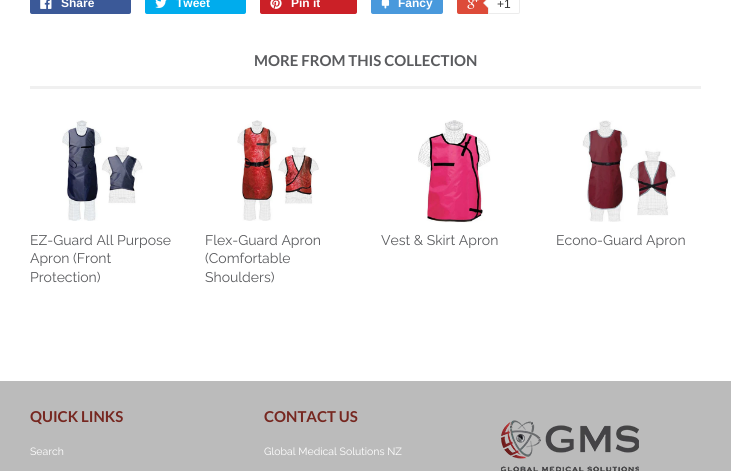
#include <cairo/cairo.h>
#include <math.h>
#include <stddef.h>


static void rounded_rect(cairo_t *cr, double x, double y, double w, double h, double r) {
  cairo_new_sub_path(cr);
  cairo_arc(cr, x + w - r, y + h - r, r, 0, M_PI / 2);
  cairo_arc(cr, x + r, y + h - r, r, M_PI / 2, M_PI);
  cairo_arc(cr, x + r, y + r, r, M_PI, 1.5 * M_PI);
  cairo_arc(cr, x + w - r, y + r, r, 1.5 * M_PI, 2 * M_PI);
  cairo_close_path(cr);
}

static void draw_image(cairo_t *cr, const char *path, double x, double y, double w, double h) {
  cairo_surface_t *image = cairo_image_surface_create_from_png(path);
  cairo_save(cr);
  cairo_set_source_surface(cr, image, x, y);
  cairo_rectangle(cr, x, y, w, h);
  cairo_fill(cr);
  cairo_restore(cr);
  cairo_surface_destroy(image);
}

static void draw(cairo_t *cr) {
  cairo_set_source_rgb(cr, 1, 1, 1);
  cairo_paint(cr);
  cairo_set_source_rgb(cr, 59 / 255.0, 89 / 255.0, 152 / 255.0);
  rounded_rect(cr, 30, -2, 101, 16, 2);
  cairo_fill(cr);
  draw_image(cr, "images/1.png", 40, 0, 12, 9);
  cairo_set_source_rgb(cr, 0, 172 / 255.0, 237 / 255.0);
  rounded_rect(cr, 145, -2, 101, 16, 2);
  cairo_fill(cr);
  draw_image(cr, "images/2.png", 155, 0, 12, 8);
  cairo_set_source_rgb(cr, 203 / 255.0, 32 / 255.0, 39 / 255.0);
  rounded_rect(cr, 260, -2, 97, 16, 2);
  cairo_fill(cr);
  draw_image(cr, "images/3.png", 270, 0, 12, 9);
  cairo_set_source_rgb(cr, 73 / 255.0, 153 / 255.0, 220 / 255.0);
  rounded_rect(cr, 371, -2, 72, 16, 2);
  cairo_fill(cr);
  draw_image(cr, "images/4.png", 381, 0, 9, 9);
  cairo_set_source_rgb(cr, 221 / 255.0, 75 / 255.0, 57 / 255.0);
  rounded_rect(cr, 457, -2, 61, 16, 2);
  cairo_fill(cr);
  draw_image(cr, "images/5.png", 467, 0, 12, 9);
  cairo_set_source_rgb(cr, 1, 1, 1);
  cairo_new_path(cr);
  cairo_move_to(cr, 488.5, -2.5);
  cairo_line_to(cr, 518, -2.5);
  cairo_curve_to(cr, 519, -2.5, 519.5, -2, 519.5, -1);
  cairo_line_to(cr, 519.5, 12);
  cairo_curve_to(cr, 519.5, 13, 519, 13.5, 518, 13.5);
  cairo_line_to(cr, 488.5, 13.5);
  cairo_close_path(cr);
  cairo_fill_preserve(cr);
  cairo_set_source_rgb(cr, 236 / 255.0, 236 / 255.0, 236 / 255.0);
  cairo_set_line_width(cr, 1);
  cairo_stroke(cr);
  cairo_new_path(cr);
  cairo_move_to(cr, 489, -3);
  cairo_line_to(cr, 489, 9);
  cairo_line_to(cr, 483, 3);
  cairo_close_path(cr);
  cairo_fill(cr);
  cairo_set_source_rgb(cr, 1, 1, 1);
  cairo_new_path(cr);
  cairo_move_to(cr, 490, -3);
  cairo_line_to(cr, 490, 9);
  cairo_line_to(cr, 484, 3);
  cairo_close_path(cr);
  cairo_fill(cr);
  cairo_set_source_rgb(cr, 240 / 255.0, 240 / 255.0, 240 / 255.0);
  cairo_rectangle(cr, 30, 86, 671, 3);
  cairo_fill(cr);
  draw_image(cr, "images/6.png", 62, 120, 81, 101);
  draw_image(cr, "images/7.png", 237, 120, 82, 101);
  draw_image(cr, "images/8.png", 418, 120, 73, 103);
  draw_image(cr, "images/9.png", 582, 120, 94, 102);
  cairo_set_source_rgb(cr, 187 / 255.0, 187 / 255.0, 187 / 255.0);
  cairo_rectangle(cr, 0, 381, 731, 90);
  cairo_fill(cr);
  draw_image(cr, "images/10.png", 501, 420, 138, 51);
  cairo_select_font_face(cr, "Liberation Sans", CAIRO_FONT_SLANT_NORMAL, CAIRO_FONT_WEIGHT_BOLD);
  cairo_set_font_size(cr, 12);
  cairo_set_source_rgb(cr, 1, 1, 1);
  cairo_move_to(cr, 61, 7);
  cairo_show_text(cr, "Share");
  cairo_move_to(cr, 176, 7);
  cairo_show_text(cr, "Tweet");
  cairo_move_to(cr, 291, 7);
  cairo_show_text(cr, "Pin it");
  cairo_move_to(cr, 398, 7);
  cairo_show_text(cr, "Fancy");
  cairo_select_font_face(cr, "Liberation Sans", CAIRO_FONT_SLANT_NORMAL, CAIRO_FONT_WEIGHT_NORMAL);
  cairo_set_source_rgb(cr, 51 / 255.0, 51 / 255.0, 51 / 255.0);
  cairo_move_to(cr, 497, 8);
  cairo_show_text(cr, "+1");
  cairo_select_font_face(cr, "Lato", CAIRO_FONT_SLANT_NORMAL, CAIRO_FONT_WEIGHT_BOLD);
  cairo_set_font_size(cr, 15);
  cairo_set_source_rgb(cr, 90 / 255.0, 91 / 255.0, 94 / 255.0);
  cairo_move_to(cr, 254, 66);
  cairo_show_text(cr, "MORE FROM THIS COLLECTION");
  cairo_select_font_face(cr, "Raleway", CAIRO_FONT_SLANT_NORMAL, CAIRO_FONT_WEIGHT_NORMAL);
  cairo_set_font_size(cr, 14);
  cairo_move_to(cr, 30, 245);
  cairo_show_text(cr, "EZ-Guard All Purpose");
  cairo_move_to(cr, 30, 263);
  cairo_show_text(cr, "Apron (Front");
  cairo_move_to(cr, 30, 282);
  cairo_show_text(cr, "Protection)");
  cairo_move_to(cr, 205, 245);
  cairo_show_text(cr, "Flex-Guard Apron");
  cairo_move_to(cr, 205, 263);
  cairo_show_text(cr, "(Comfortable");
  cairo_move_to(cr, 205, 282);
  cairo_show_text(cr, "Shoulders)");
  cairo_move_to(cr, 381, 245);
  cairo_show_text(cr, "Vest & Skirt Apron");
  cairo_move_to(cr, 556, 245);
  cairo_show_text(cr, "Econo-Guard Apron");
  cairo_select_font_face(cr, "Lato", CAIRO_FONT_SLANT_NORMAL, CAIRO_FONT_WEIGHT_BOLD);
  cairo_set_font_size(cr, 15);
  cairo_set_source_rgb(cr, 118 / 255.0, 39 / 255.0, 32 / 255.0);
  cairo_move_to(cr, 30, 422);
  cairo_show_text(cr, "QUICK LINKS");
  cairo_select_font_face(cr, "Raleway", CAIRO_FONT_SLANT_NORMAL, CAIRO_FONT_WEIGHT_NORMAL);
  cairo_set_font_size(cr, 10.5);
  cairo_set_source_rgb(cr, 1, 1, 1);
  cairo_move_to(cr, 30, 455);
  cairo_show_text(cr, "Search");
  cairo_select_font_face(cr, "Lato", CAIRO_FONT_SLANT_NORMAL, CAIRO_FONT_WEIGHT_BOLD);
  cairo_set_font_size(cr, 15);
  cairo_set_source_rgb(cr, 118 / 255.0, 39 / 255.0, 32 / 255.0);
  cairo_move_to(cr, 264, 422);
  cairo_show_text(cr, "CONTACT US");
  cairo_select_font_face(cr, "Raleway", CAIRO_FONT_SLANT_NORMAL, CAIRO_FONT_WEIGHT_NORMAL);
  cairo_set_font_size(cr, 10.5);
  cairo_set_source_rgb(cr, 1, 1, 1);
  cairo_move_to(cr, 264, 455);
  cairo_show_text(cr, "Global Medical Solutions NZ");
}

int main(void) {
  cairo_surface_t *surface = cairo_image_surface_create(CAIRO_FORMAT_RGB24, 731, 471);
  cairo_t *cr = cairo_create(surface);
  cairo_font_options_t *options = cairo_font_options_create();
  cairo_font_options_set_hint_metrics(options, CAIRO_HINT_METRICS_OFF);
  cairo_font_options_set_hint_style(options, CAIRO_HINT_STYLE_NONE);
  cairo_set_font_options(cr, options);
  cairo_set_miter_limit(cr, 4);
  draw(cr);
  cairo_surface_write_to_png(surface, "out.png");
  cairo_font_options_destroy(options);
  cairo_destroy(cr);
  cairo_surface_destroy(surface);
  return 0;
}
